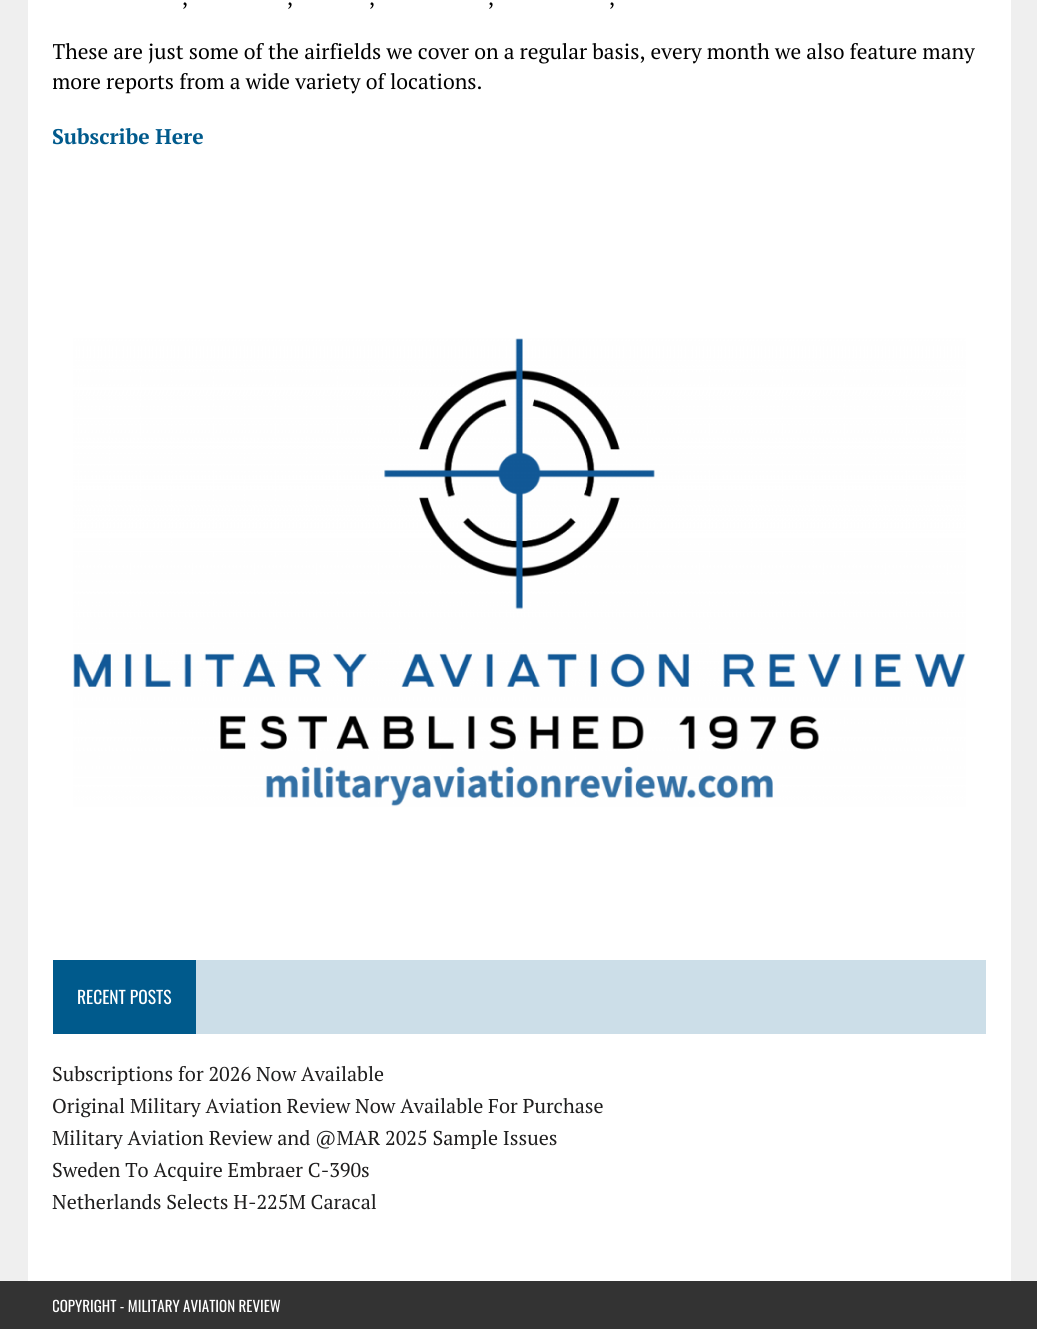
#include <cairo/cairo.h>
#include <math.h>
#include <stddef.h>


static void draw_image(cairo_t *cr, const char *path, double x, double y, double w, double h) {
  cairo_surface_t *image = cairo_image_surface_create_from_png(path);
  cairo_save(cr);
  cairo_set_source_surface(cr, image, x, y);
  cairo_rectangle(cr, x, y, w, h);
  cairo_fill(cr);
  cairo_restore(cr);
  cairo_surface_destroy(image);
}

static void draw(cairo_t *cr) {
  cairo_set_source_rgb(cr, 239 / 255.0, 239 / 255.0, 239 / 255.0);
  cairo_paint(cr);
  cairo_set_source_rgb(cr, 1, 1, 1);
  cairo_rectangle(cr, 28, 0, 983, 1281);
  cairo_fill(cr);
  draw_image(cr, "images/1.png", 73, 338, 893, 469);
  cairo_set_source_rgb(cr, 204 / 255.0, 222 / 255.0, 232 / 255.0);
  cairo_rectangle(cr, 196, 960, 790, 74);
  cairo_fill(cr);
  cairo_set_source_rgb(cr, 0, 90 / 255.0, 140 / 255.0);
  cairo_rectangle(cr, 53, 960, 143, 74);
  cairo_fill(cr);
  cairo_set_source_rgb(cr, 51 / 255.0, 51 / 255.0, 51 / 255.0);
  cairo_rectangle(cr, 0, 1281, 1037, 48);
  cairo_fill(cr);
  cairo_select_font_face(cr, "PT Serif", CAIRO_FONT_SLANT_NORMAL, CAIRO_FONT_WEIGHT_NORMAL);
  cairo_set_font_size(cr, 21.25);
  cairo_set_source_rgb(cr, 0, 0, 0);
  cairo_move_to(cr, 182, 5);
  cairo_show_text(cr, ",");
  cairo_move_to(cr, 287, 5);
  cairo_show_text(cr, ",");
  cairo_move_to(cr, 369, 5);
  cairo_show_text(cr, ",");
  cairo_move_to(cr, 488, 5);
  cairo_show_text(cr, ",");
  cairo_move_to(cr, 609, 5);
  cairo_show_text(cr, ",");
  cairo_save(cr);
  cairo_rectangle(cr, 53, 0, 933, 176);
  cairo_clip(cr);
  cairo_move_to(cr, 52, 59);
  cairo_show_text(cr, "These are just some of the airfields we cover on a regular basis, every month we also feature many");
  cairo_move_to(cr, 52, 89);
  cairo_show_text(cr, "more reports from a wide variety of locations.");
  cairo_restore(cr);
  cairo_select_font_face(cr, "PT Serif", CAIRO_FONT_SLANT_NORMAL, CAIRO_FONT_WEIGHT_BOLD);
  cairo_set_source_rgb(cr, 0, 90 / 255.0, 140 / 255.0);
  cairo_move_to(cr, 52, 144);
  cairo_show_text(cr, "Subscribe Here");
  cairo_select_font_face(cr, "Oswald", CAIRO_FONT_SLANT_NORMAL, CAIRO_FONT_WEIGHT_NORMAL);
  cairo_set_font_size(cr, 17.5);
  cairo_set_source_rgb(cr, 1, 1, 1);
  cairo_move_to(cr, 77, 1004);
  cairo_show_text(cr, "RECENT POSTS");
  cairo_select_font_face(cr, "PT Serif", CAIRO_FONT_SLANT_NORMAL, CAIRO_FONT_WEIGHT_NORMAL);
  cairo_set_font_size(cr, 20);
  cairo_set_source_rgb(cr, 31 / 255.0, 30 / 255.0, 30 / 255.0);
  cairo_move_to(cr, 52, 1081);
  cairo_show_text(cr, "Subscriptions for 2026 Now Available");
  cairo_move_to(cr, 52, 1113);
  cairo_show_text(cr, "Original Military Aviation Review Now Available For Purchase");
  cairo_move_to(cr, 52, 1145);
  cairo_show_text(cr, "Military Aviation Review and @MAR 2025 Sample Issues");
  cairo_move_to(cr, 52, 1177);
  cairo_show_text(cr, "Sweden To Acquire Embraer C-390s");
  cairo_move_to(cr, 52, 1209);
  cairo_show_text(cr, "Netherlands Selects H-225M Caracal");
  cairo_save(cr);
  cairo_rectangle(cr, 53, 1294, 466, 24);
  cairo_clip(cr);
  cairo_select_font_face(cr, "Oswald", CAIRO_FONT_SLANT_NORMAL, CAIRO_FONT_WEIGHT_NORMAL);
  cairo_set_font_size(cr, 15);
  cairo_set_source_rgb(cr, 1, 1, 1);
  cairo_move_to(cr, 52, 1312);
  cairo_show_text(cr, "COPYRIGHT - MILITARY AVIATION REVIEW");
  cairo_restore(cr);
}

int main(void) {
  cairo_surface_t *surface = cairo_image_surface_create(CAIRO_FORMAT_RGB24, 1037, 1329);
  cairo_t *cr = cairo_create(surface);
  cairo_font_options_t *options = cairo_font_options_create();
  cairo_font_options_set_hint_metrics(options, CAIRO_HINT_METRICS_OFF);
  cairo_font_options_set_hint_style(options, CAIRO_HINT_STYLE_NONE);
  cairo_set_font_options(cr, options);
  cairo_set_miter_limit(cr, 4);
  draw(cr);
  cairo_surface_write_to_png(surface, "out.png");
  cairo_font_options_destroy(options);
  cairo_destroy(cr);
  cairo_surface_destroy(surface);
  return 0;
}
